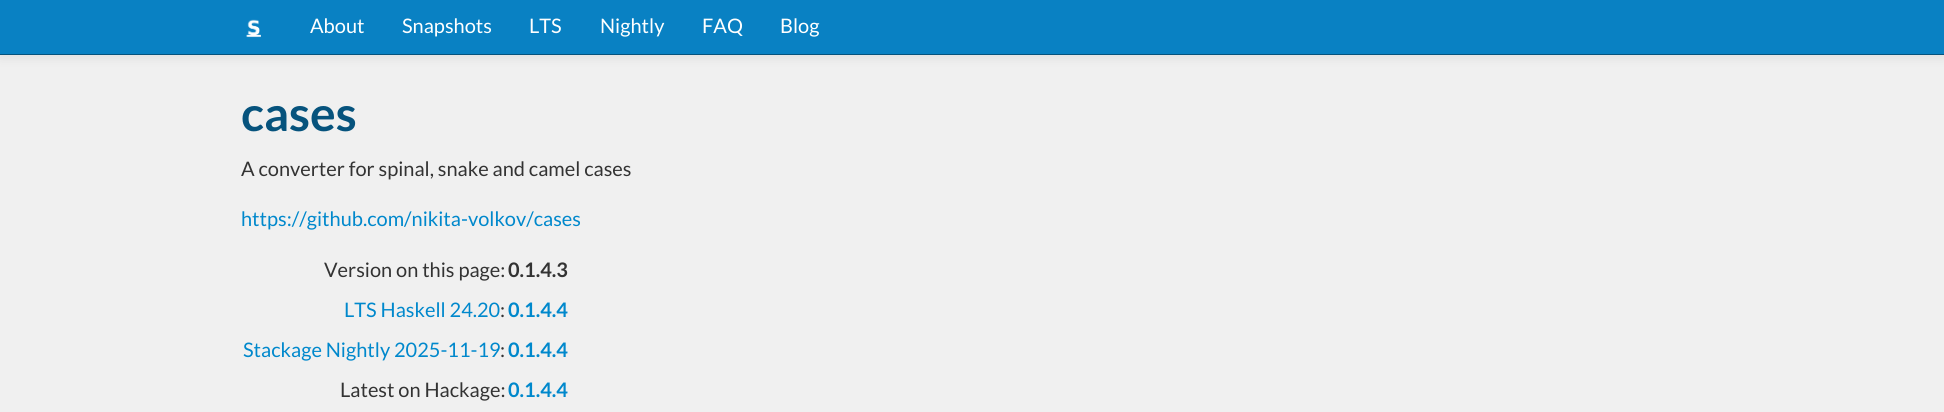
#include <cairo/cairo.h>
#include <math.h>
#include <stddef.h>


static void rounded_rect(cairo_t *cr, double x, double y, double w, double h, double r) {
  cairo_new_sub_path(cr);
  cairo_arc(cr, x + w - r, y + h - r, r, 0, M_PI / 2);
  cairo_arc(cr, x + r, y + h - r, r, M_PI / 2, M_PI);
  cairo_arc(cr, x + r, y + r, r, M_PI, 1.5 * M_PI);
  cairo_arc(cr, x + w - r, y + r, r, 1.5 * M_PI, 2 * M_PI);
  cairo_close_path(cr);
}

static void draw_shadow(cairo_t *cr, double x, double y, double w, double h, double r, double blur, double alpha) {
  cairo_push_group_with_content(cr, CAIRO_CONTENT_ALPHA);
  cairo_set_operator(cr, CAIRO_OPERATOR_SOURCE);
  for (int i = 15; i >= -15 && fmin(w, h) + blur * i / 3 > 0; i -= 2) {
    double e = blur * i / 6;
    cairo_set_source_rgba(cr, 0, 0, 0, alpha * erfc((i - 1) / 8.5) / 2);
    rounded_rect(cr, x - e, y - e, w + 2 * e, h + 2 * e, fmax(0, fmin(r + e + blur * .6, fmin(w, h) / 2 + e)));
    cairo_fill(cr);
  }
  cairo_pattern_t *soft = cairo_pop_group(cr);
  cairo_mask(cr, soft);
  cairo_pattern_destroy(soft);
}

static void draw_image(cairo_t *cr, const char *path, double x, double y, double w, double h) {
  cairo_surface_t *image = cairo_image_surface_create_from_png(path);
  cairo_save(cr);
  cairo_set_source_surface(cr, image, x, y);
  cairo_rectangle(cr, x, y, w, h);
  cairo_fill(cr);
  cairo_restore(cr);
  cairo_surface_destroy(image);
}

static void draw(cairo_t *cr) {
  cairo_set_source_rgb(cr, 240 / 255.0, 240 / 255.0, 240 / 255.0);
  cairo_paint(cr);
  cairo_set_source_rgb(cr, 0, 0, 0);
  draw_shadow(cr, 0, 1, 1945, 55, 0, 6, 0.1);
  cairo_set_source_rgb(cr, 9 / 255.0, 129 / 255.0, 195 / 255.0);
  cairo_rectangle(cr, 0, 0, 1944, 54);
  cairo_fill(cr);
  cairo_set_source_rgb(cr, 6 / 255.0, 83 / 255.0, 125 / 255.0);
  cairo_rectangle(cr, 0, 54, 1944, 1);
  cairo_fill(cr);
  draw_image(cr, "images/1.png", 246, 19, 15, 19);
  cairo_select_font_face(cr, "Lato", CAIRO_FONT_SLANT_NORMAL, CAIRO_FONT_WEIGHT_NORMAL);
  cairo_set_font_size(cr, 20);
  cairo_set_source_rgb(cr, 1, 1, 1);
  cairo_move_to(cr, 310, 33);
  cairo_show_text(cr, "About");
  cairo_move_to(cr, 402, 33);
  cairo_show_text(cr, "Snapshots");
  cairo_move_to(cr, 529, 33);
  cairo_show_text(cr, "LTS");
  cairo_move_to(cr, 600, 33);
  cairo_show_text(cr, "Nightly");
  cairo_move_to(cr, 702, 33);
  cairo_show_text(cr, "FAQ");
  cairo_move_to(cr, 780, 33);
  cairo_show_text(cr, "Blog");
  cairo_select_font_face(cr, "Lato", CAIRO_FONT_SLANT_NORMAL, CAIRO_FONT_WEIGHT_BOLD);
  cairo_set_font_size(cr, 48);
  cairo_set_source_rgb(cr, 6 / 255.0, 83 / 255.0, 125 / 255.0);
  cairo_move_to(cr, 241, 131);
  cairo_show_text(cr, "cases");
  cairo_select_font_face(cr, "Lato", CAIRO_FONT_SLANT_NORMAL, CAIRO_FONT_WEIGHT_NORMAL);
  cairo_set_font_size(cr, 20);
  cairo_set_source_rgb(cr, 51 / 255.0, 51 / 255.0, 51 / 255.0);
  cairo_move_to(cr, 241, 176);
  cairo_show_text(cr, "A converter for spinal, snake and camel cases");
  cairo_set_source_rgb(cr, 0, 136 / 255.0, 204 / 255.0);
  cairo_move_to(cr, 241, 226);
  cairo_show_text(cr, "https://github.com/nikita-volkov/cases");
  cairo_set_source_rgb(cr, 51 / 255.0, 51 / 255.0, 51 / 255.0);
  cairo_move_to(cr, 324, 277);
  cairo_show_text(cr, "Version on this page:");
  cairo_select_font_face(cr, "Lato", CAIRO_FONT_SLANT_NORMAL, CAIRO_FONT_WEIGHT_BOLD);
  cairo_move_to(cr, 508, 277);
  cairo_show_text(cr, "0.1.4.3");
  cairo_select_font_face(cr, "Lato", CAIRO_FONT_SLANT_NORMAL, CAIRO_FONT_WEIGHT_NORMAL);
  cairo_set_source_rgb(cr, 0, 136 / 255.0, 204 / 255.0);
  cairo_move_to(cr, 344, 317);
  cairo_show_text(cr, "LTS Haskell 24.20");
  cairo_set_source_rgb(cr, 51 / 255.0, 51 / 255.0, 51 / 255.0);
  cairo_move_to(cr, 500, 317);
  cairo_show_text(cr, ":");
  cairo_select_font_face(cr, "Lato", CAIRO_FONT_SLANT_NORMAL, CAIRO_FONT_WEIGHT_BOLD);
  cairo_set_source_rgb(cr, 0, 136 / 255.0, 204 / 255.0);
  cairo_move_to(cr, 508, 317);
  cairo_show_text(cr, "0.1.4.4");
  cairo_select_font_face(cr, "Lato", CAIRO_FONT_SLANT_NORMAL, CAIRO_FONT_WEIGHT_NORMAL);
  cairo_move_to(cr, 243, 357);
  cairo_show_text(cr, "Stackage Nightly 2025-11-19");
  cairo_set_source_rgb(cr, 51 / 255.0, 51 / 255.0, 51 / 255.0);
  cairo_move_to(cr, 500, 357);
  cairo_show_text(cr, ":");
  cairo_select_font_face(cr, "Lato", CAIRO_FONT_SLANT_NORMAL, CAIRO_FONT_WEIGHT_BOLD);
  cairo_set_source_rgb(cr, 0, 136 / 255.0, 204 / 255.0);
  cairo_move_to(cr, 508, 357);
  cairo_show_text(cr, "0.1.4.4");
  cairo_select_font_face(cr, "Lato", CAIRO_FONT_SLANT_NORMAL, CAIRO_FONT_WEIGHT_NORMAL);
  cairo_set_source_rgb(cr, 51 / 255.0, 51 / 255.0, 51 / 255.0);
  cairo_move_to(cr, 340, 397);
  cairo_show_text(cr, "Latest on Hackage:");
  cairo_select_font_face(cr, "Lato", CAIRO_FONT_SLANT_NORMAL, CAIRO_FONT_WEIGHT_BOLD);
  cairo_set_source_rgb(cr, 0, 136 / 255.0, 204 / 255.0);
  cairo_move_to(cr, 508, 397);
  cairo_show_text(cr, "0.1.4.4");
}

int main(void) {
  cairo_surface_t *surface = cairo_image_surface_create(CAIRO_FORMAT_RGB24, 1944, 412);
  cairo_t *cr = cairo_create(surface);
  cairo_font_options_t *options = cairo_font_options_create();
  cairo_font_options_set_hint_metrics(options, CAIRO_HINT_METRICS_OFF);
  cairo_font_options_set_hint_style(options, CAIRO_HINT_STYLE_NONE);
  cairo_set_font_options(cr, options);
  cairo_set_miter_limit(cr, 4);
  draw(cr);
  cairo_surface_write_to_png(surface, "out.png");
  cairo_font_options_destroy(options);
  cairo_destroy(cr);
  cairo_surface_destroy(surface);
  return 0;
}
